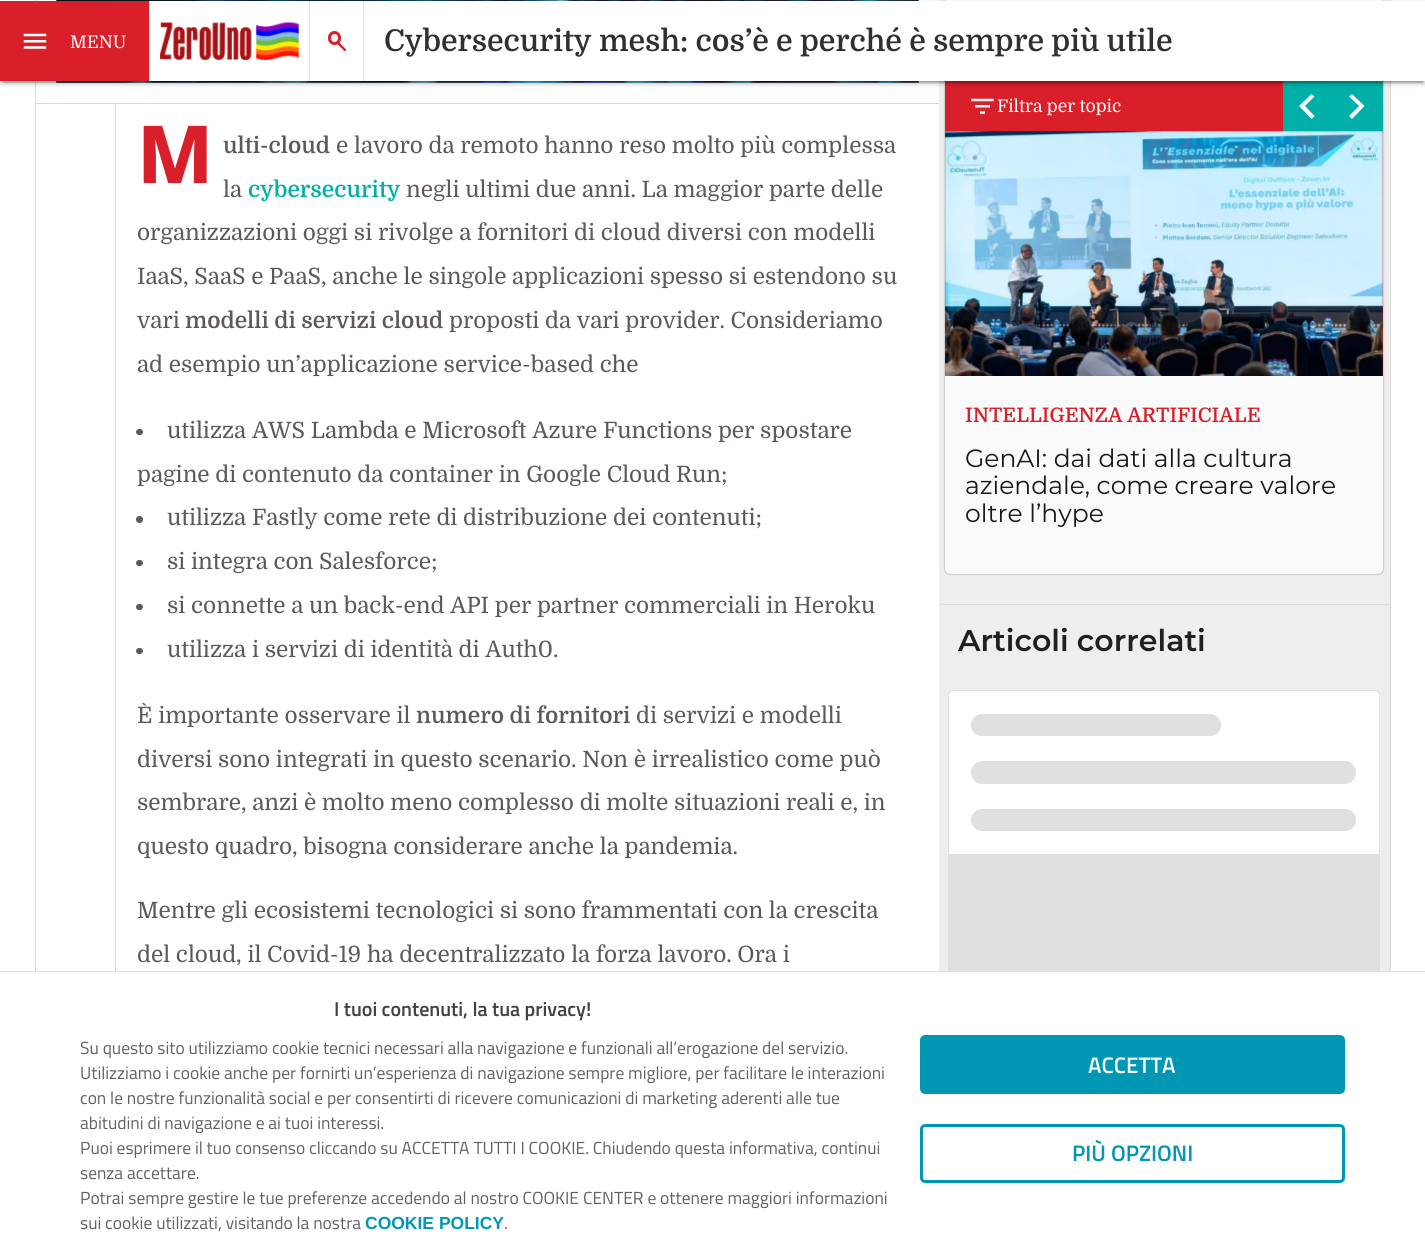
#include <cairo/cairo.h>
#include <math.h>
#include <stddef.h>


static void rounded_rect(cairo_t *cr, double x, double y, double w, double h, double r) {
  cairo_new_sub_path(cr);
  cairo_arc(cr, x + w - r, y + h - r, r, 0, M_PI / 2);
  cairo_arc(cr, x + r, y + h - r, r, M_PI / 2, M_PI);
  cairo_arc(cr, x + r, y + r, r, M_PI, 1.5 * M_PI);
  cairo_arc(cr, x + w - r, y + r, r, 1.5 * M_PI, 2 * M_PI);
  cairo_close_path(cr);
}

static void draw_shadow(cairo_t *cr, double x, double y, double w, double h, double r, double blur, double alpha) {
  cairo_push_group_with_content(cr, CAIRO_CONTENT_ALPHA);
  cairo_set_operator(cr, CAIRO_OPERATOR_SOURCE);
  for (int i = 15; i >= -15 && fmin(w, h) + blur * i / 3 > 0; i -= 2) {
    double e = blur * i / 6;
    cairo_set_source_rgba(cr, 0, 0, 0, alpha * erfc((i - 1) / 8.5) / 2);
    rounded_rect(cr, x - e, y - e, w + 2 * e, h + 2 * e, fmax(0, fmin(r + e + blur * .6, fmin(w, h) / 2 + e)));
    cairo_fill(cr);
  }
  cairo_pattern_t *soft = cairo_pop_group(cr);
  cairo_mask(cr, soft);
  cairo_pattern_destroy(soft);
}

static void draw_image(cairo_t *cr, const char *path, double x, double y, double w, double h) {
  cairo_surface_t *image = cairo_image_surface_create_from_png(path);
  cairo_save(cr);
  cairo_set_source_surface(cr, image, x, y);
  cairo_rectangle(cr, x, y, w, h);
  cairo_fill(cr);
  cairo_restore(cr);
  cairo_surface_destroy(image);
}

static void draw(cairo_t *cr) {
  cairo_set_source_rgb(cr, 1, 1, 1);
  cairo_paint(cr);
  cairo_set_source_rgb(cr, 220 / 255.0, 217 / 255.0, 216 / 255.0);
  cairo_rectangle(cr, 36, 103, 903, 1);
  cairo_fill(cr);
  cairo_rectangle(cr, 115, 104, 1, 867);
  cairo_fill(cr);
  cairo_set_source_rgb(cr, 95 / 255.0, 88 / 255.0, 88 / 255.0);
  rounded_rect(cr, 136, 429, 7, 6, 3);
  cairo_fill(cr);
  cairo_arc(cr, 139.5, 519.5, 3.5, 0, 2 * M_PI);
  cairo_fill(cr);
  rounded_rect(cr, 136, 560, 7, 6, 3);
  cairo_fill(cr);
  rounded_rect(cr, 136, 604, 7, 6, 3);
  cairo_fill(cr);
  rounded_rect(cr, 136, 648, 7, 6, 3);
  cairo_fill(cr);
  cairo_set_source_rgb(cr, 239 / 255.0, 237 / 255.0, 237 / 255.0);
  cairo_rectangle(cr, 939, 0, 451, 971);
  cairo_fill(cr);
  cairo_set_source_rgb(cr, 220 / 255.0, 217 / 255.0, 216 / 255.0);
  cairo_rectangle(cr, 939, 604, 451, 1);
  cairo_fill(cr);
  cairo_rectangle(cr, 35.5, -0.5, 1355, 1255);
  cairo_set_line_width(cr, 1);
  cairo_stroke(cr);
  draw_image(cr, "images/3.png", 56, 0, 863, 83);
  cairo_set_source_rgb(cr, 158 / 255.0, 158 / 255.0, 158 / 255.0);
  draw_shadow(cr, 945, -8, 438, 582, 5, 1, 1);
  cairo_set_source_rgb(cr, 1, 1, 1);
  rounded_rect(cr, 945, -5, 438, 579, 5);
  cairo_fill(cr);
  cairo_set_source_rgb(cr, 216 / 255.0, 31 / 255.0, 42 / 255.0);
  cairo_new_path(cr);
  cairo_move_to(cr, 945, 81);
  cairo_line_to(cr, 1383, 81);
  cairo_line_to(cr, 1383, 569);
  cairo_curve_to(cr, 1383, 572, 1381, 574, 1378, 574);
  cairo_line_to(cr, 950, 574);
  cairo_curve_to(cr, 947, 574, 945, 572, 945, 569);
  cairo_close_path(cr);
  cairo_fill(cr);
  cairo_set_source_rgb(cr, 0, 175 / 255.0, 168 / 255.0);
  cairo_rectangle(cr, 1283, 81, 100, 50);
  cairo_fill(cr);
  cairo_set_source_rgb(cr, 0, 0, 0);
  draw_shadow(cr, 3, 8, 1420, 75, 0, 0.5, 0.2);
  draw_shadow(cr, 0, 3, 1425, 80, 0, 3, 0.12);
  draw_shadow(cr, 0, 4, 1425, 80, 0, 2.5, 0.14);
  cairo_set_source_rgb(cr, 216 / 255.0, 31 / 255.0, 42 / 255.0);
  cairo_rectangle(cr, 0, 1, 149, 80);
  cairo_fill(cr);
  cairo_set_source_rgb(cr, 224 / 255.0, 224 / 255.0, 224 / 255.0);
  cairo_rectangle(cr, 149, 1, 1, 80);
  cairo_fill(cr);
  draw_image(cr, "images/1.png", 23, 33, 24, 16);
  cairo_set_source_rgb(cr, 1, 1, 1);
  cairo_rectangle(cr, 150, 1, 159, 80);
  cairo_fill(cr);
  draw_image(cr, "images/2.png", 160, 22, 139, 38);
  cairo_rectangle(cr, 310, 1, 53, 80);
  cairo_fill(cr);
  cairo_set_source_rgb(cr, 224 / 255.0, 224 / 255.0, 224 / 255.0);
  cairo_rectangle(cr, 363, 1, 1, 80);
  cairo_fill(cr);
  cairo_rectangle(cr, 309, 1, 1, 80);
  cairo_fill(cr);
  cairo_set_source_rgb(cr, 216 / 255.0, 31 / 255.0, 42 / 255.0);
  cairo_new_path(cr);
  cairo_move_to(cr, 333.5, 36.5);
  cairo_line_to(cr, 346, 49.5);
  cairo_curve_to(cr, 346.5, 50.5, 345.5, 51.5, 344.5, 51);
  cairo_line_to(cr, 331.5, 38.5);
  cairo_curve_to(cr, 330.5, 37.5, 332.5, 35.5, 333.5, 36.5);
  cairo_close_path(cr);
  cairo_fill(cr);
  cairo_set_source_rgb(cr, 245 / 255.0, 245 / 255.0, 245 / 255.0);
  rounded_rect(cr, 329.5, 32.5, 10, 11, 5);
  cairo_fill_preserve(cr);
  cairo_set_source_rgb(cr, 216 / 255.0, 31 / 255.0, 42 / 255.0);
  cairo_set_line_width(cr, 3);
  cairo_stroke(cr);
  cairo_set_source_rgb(cr, 1, 1, 1);
  cairo_rectangle(cr, 364, 1, 1061, 80);
  cairo_fill(cr);
  draw_image(cr, "images/4.png", 971, 98, 23, 16);
  cairo_set_source_rgb(cr, 250 / 255.0, 250 / 255.0, 250 / 255.0);
  cairo_new_path(cr);
  cairo_move_to(cr, 1311.5, 119);
  cairo_line_to(cr, 1299, 106);
  cairo_line_to(cr, 1311.5, 94);
  cairo_line_to(cr, 1314.5, 96.5);
  cairo_line_to(cr, 1305, 106);
  cairo_line_to(cr, 1314.5, 116);
  cairo_close_path(cr);
  cairo_fill(cr);
  cairo_new_path(cr);
  cairo_move_to(cr, 1359, 106);
  cairo_line_to(cr, 1349, 96.5);
  cairo_line_to(cr, 1352, 94);
  cairo_line_to(cr, 1364.5, 106);
  cairo_line_to(cr, 1352, 119);
  cairo_line_to(cr, 1349, 116);
  cairo_close_path(cr);
  cairo_fill(cr);
  draw_image(cr, "images/5.png", 945, 131, 438, 245);
  cairo_new_path(cr);
  cairo_move_to(cr, 945, 376);
  cairo_line_to(cr, 1383, 376);
  cairo_line_to(cr, 1383, 569);
  cairo_curve_to(cr, 1383, 572, 1381, 574, 1378, 574);
  cairo_line_to(cr, 950, 574);
  cairo_curve_to(cr, 947, 574, 945, 572, 945, 569);
  cairo_close_path(cr);
  cairo_fill(cr);
  cairo_set_source_rgb(cr, 1, 1, 1);
  rounded_rect(cr, 948.5, 690.5, 431, 537, 4.5);
  cairo_fill_preserve(cr);
  cairo_set_source_rgb(cr, 224 / 255.0, 224 / 255.0, 224 / 255.0);
  cairo_set_line_width(cr, 1);
  cairo_stroke(cr);
  rounded_rect(cr, 971, 714, 250, 22, 11);
  cairo_fill(cr);
  rounded_rect(cr, 971, 761, 385, 23, 11.5);
  cairo_fill(cr);
  rounded_rect(cr, 971, 809, 385, 22, 11);
  cairo_fill(cr);
  cairo_rectangle(cr, 949, 854, 430, 117);
  cairo_fill(cr);
  cairo_set_source_rgb(cr, 1, 1, 1);
  cairo_rectangle(cr, 35, 972, 1356, 282);
  cairo_fill(cr);
  cairo_set_source_rgb(cr, 224 / 255.0, 224 / 255.0, 224 / 255.0);
  cairo_rectangle(cr, 0, 971, 1425, 1);
  cairo_fill(cr);
  cairo_set_source_rgb(cr, 0, 151 / 255.0, 181 / 255.0);
  rounded_rect(cr, 921.5, 1036.5, 422, 56, 3.5);
  cairo_fill_preserve(cr);
  cairo_set_line_width(cr, 3);
  cairo_stroke(cr);
  rounded_rect(cr, 921.5, 1125.5, 422, 56, 3.5);
  cairo_stroke(cr);
  cairo_select_font_face(cr, "Domine", CAIRO_FONT_SLANT_NORMAL, CAIRO_FONT_WEIGHT_NORMAL);
  cairo_set_font_size(cr, 17.5);
  cairo_set_source_rgb(cr, 250 / 255.0, 250 / 255.0, 250 / 255.0);
  cairo_move_to(cr, 70, 48);
  cairo_show_text(cr, "MENU");
  cairo_select_font_face(cr, "Domine SemiBold", CAIRO_FONT_SLANT_NORMAL, CAIRO_FONT_WEIGHT_NORMAL);
  cairo_set_font_size(cr, 30);
  cairo_set_source_rgb(cr, 48 / 255.0, 48 / 255.0, 48 / 255.0);
  cairo_move_to(cr, 384, 51);
  cairo_show_text(cr, "Cybersecurity mesh: cos’è e perché è sempre più utile");
  cairo_select_font_face(cr, "Noto Sans ExtraBold", CAIRO_FONT_SLANT_NORMAL, CAIRO_FONT_WEIGHT_NORMAL);
  cairo_set_font_size(cr, 80);
  cairo_set_source_rgb(cr, 216 / 255.0, 31 / 255.0, 42 / 255.0);
  cairo_move_to(cr, 137, 183);
  cairo_show_text(cr, "M");
  cairo_select_font_face(cr, "Domine SemiBold", CAIRO_FONT_SLANT_NORMAL, CAIRO_FONT_WEIGHT_NORMAL);
  cairo_set_font_size(cr, 22.5);
  cairo_set_source_rgb(cr, 95 / 255.0, 88 / 255.0, 88 / 255.0);
  cairo_move_to(cr, 223, 153);
  cairo_show_text(cr, "ulti-cloud");
  cairo_select_font_face(cr, "Domine", CAIRO_FONT_SLANT_NORMAL, CAIRO_FONT_WEIGHT_NORMAL);
  cairo_move_to(cr, 336, 153);
  cairo_show_text(cr, "e lavoro da remoto hanno reso molto più complessa");
  cairo_move_to(cr, 223, 197);
  cairo_show_text(cr, "la");
  cairo_select_font_face(cr, "Domine SemiBold", CAIRO_FONT_SLANT_NORMAL, CAIRO_FONT_WEIGHT_NORMAL);
  cairo_set_source_rgb(cr, 0, 175 / 255.0, 168 / 255.0);
  cairo_move_to(cr, 248, 197);
  cairo_show_text(cr, "cybersecurity");
  cairo_select_font_face(cr, "Domine", CAIRO_FONT_SLANT_NORMAL, CAIRO_FONT_WEIGHT_NORMAL);
  cairo_set_source_rgb(cr, 95 / 255.0, 88 / 255.0, 88 / 255.0);
  cairo_move_to(cr, 406, 197);
  cairo_show_text(cr, "negli ultimi due anni. La maggior parte delle");
  cairo_move_to(cr, 137, 240);
  cairo_show_text(cr, "organizzazioni oggi si rivolge a fornitori di cloud diversi con modelli");
  cairo_move_to(cr, 137, 284);
  cairo_show_text(cr, "IaaS, SaaS e PaaS, anche le singole applicazioni spesso si estendono su");
  cairo_move_to(cr, 137, 328);
  cairo_show_text(cr, "vari");
  cairo_select_font_face(cr, "Domine SemiBold", CAIRO_FONT_SLANT_NORMAL, CAIRO_FONT_WEIGHT_NORMAL);
  cairo_move_to(cr, 185, 328);
  cairo_show_text(cr, "modelli di servizi cloud");
  cairo_select_font_face(cr, "Domine", CAIRO_FONT_SLANT_NORMAL, CAIRO_FONT_WEIGHT_NORMAL);
  cairo_move_to(cr, 449, 328);
  cairo_show_text(cr, "proposti da vari provider. Consideriamo");
  cairo_move_to(cr, 137, 372);
  cairo_show_text(cr, "ad esempio un’applicazione service-based che");
  cairo_move_to(cr, 167, 438);
  cairo_show_text(cr, "utilizza AWS Lambda e Microsoft Azure Functions per spostare");
  cairo_move_to(cr, 137, 482);
  cairo_show_text(cr, "pagine di contenuto da container in Google Cloud Run;");
  cairo_move_to(cr, 167, 525);
  cairo_show_text(cr, "utilizza Fastly come rete di distribuzione dei contenuti;");
  cairo_move_to(cr, 167, 569);
  cairo_show_text(cr, "si integra con Salesforce;");
  cairo_move_to(cr, 167, 613);
  cairo_show_text(cr, "si connette a un back-end API per partner commerciali in Heroku");
  cairo_move_to(cr, 167, 657);
  cairo_show_text(cr, "utilizza i servizi di identità di Auth0.");
  cairo_move_to(cr, 137, 723);
  cairo_show_text(cr, "È importante osservare il");
  cairo_select_font_face(cr, "Domine SemiBold", CAIRO_FONT_SLANT_NORMAL, CAIRO_FONT_WEIGHT_NORMAL);
  cairo_move_to(cr, 416, 723);
  cairo_show_text(cr, "numero di fornitori");
  cairo_select_font_face(cr, "Domine", CAIRO_FONT_SLANT_NORMAL, CAIRO_FONT_WEIGHT_NORMAL);
  cairo_move_to(cr, 636, 723);
  cairo_show_text(cr, "di servizi e modelli");
  cairo_move_to(cr, 137, 767);
  cairo_show_text(cr, "diversi sono integrati in questo scenario. Non è irrealistico come può");
  cairo_move_to(cr, 137, 810);
  cairo_show_text(cr, "sembrare, anzi è molto meno complesso di molte situazioni reali e, in");
  cairo_move_to(cr, 137, 854);
  cairo_show_text(cr, "questo quadro, bisogna considerare anche la pandemia.");
  cairo_move_to(cr, 137, 918);
  cairo_show_text(cr, "Mentre gli ecosistemi tecnologici si sono frammentati con la crescita");
  cairo_move_to(cr, 137, 962);
  cairo_show_text(cr, "del cloud, il Covid-19 ha decentralizzato la forza lavoro. Ora i");
  cairo_set_font_size(cr, 17.5);
  cairo_set_source_rgb(cr, 250 / 255.0, 250 / 255.0, 250 / 255.0);
  cairo_move_to(cr, 997, 112);
  cairo_show_text(cr, "Filtra per topic");
  cairo_select_font_face(cr, "Domine SemiBold", CAIRO_FONT_SLANT_NORMAL, CAIRO_FONT_WEIGHT_NORMAL);
  cairo_set_font_size(cr, 20);
  cairo_set_source_rgb(cr, 216 / 255.0, 31 / 255.0, 42 / 255.0);
  cairo_move_to(cr, 965, 422);
  cairo_show_text(cr, "INTELLIGENZA ARTIFICIALE");
  cairo_select_font_face(cr, "Montserrat", CAIRO_FONT_SLANT_NORMAL, CAIRO_FONT_WEIGHT_NORMAL);
  cairo_set_font_size(cr, 25);
  cairo_set_source_rgb(cr, 25 / 255.0, 25 / 255.0, 25 / 255.0);
  cairo_move_to(cr, 965, 467);
  cairo_show_text(cr, "GenAI: dai dati alla cultura");
  cairo_move_to(cr, 965, 494);
  cairo_show_text(cr, "aziendale, come creare valore");
  cairo_move_to(cr, 965, 522);
  cairo_show_text(cr, "oltre l’hype");
  cairo_select_font_face(cr, "Montserrat SemiBold", CAIRO_FONT_SLANT_NORMAL, CAIRO_FONT_WEIGHT_NORMAL);
  cairo_set_font_size(cr, 30);
  cairo_set_source_rgb(cr, 34 / 255.0, 31 / 255.0, 31 / 255.0);
  cairo_move_to(cr, 958, 651);
  cairo_show_text(cr, "Articoli correlati");
  cairo_select_font_face(cr, "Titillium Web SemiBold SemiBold", CAIRO_FONT_SLANT_NORMAL, CAIRO_FONT_WEIGHT_NORMAL);
  cairo_set_font_size(cr, 20);
  cairo_set_source_rgb(cr, 66 / 255.0, 66 / 255.0, 66 / 255.0);
  cairo_move_to(cr, 334, 1016);
  cairo_show_text(cr, "I tuoi contenuti, la tua privacy!");
  cairo_select_font_face(cr, "Titillium Web", CAIRO_FONT_SLANT_NORMAL, CAIRO_FONT_WEIGHT_NORMAL);
  cairo_set_font_size(cr, 17.5);
  cairo_set_source_rgb(cr, 97 / 255.0, 97 / 255.0, 97 / 255.0);
  cairo_move_to(cr, 80, 1054);
  cairo_show_text(cr, "Su questo sito utilizziamo cookie tecnici necessari alla navigazione e funzionali all’erogazione del servizio.");
  cairo_move_to(cr, 80, 1079);
  cairo_show_text(cr, "Utilizziamo i cookie anche per fornirti un’esperienza di navigazione sempre migliore, per facilitare le interazioni");
  cairo_move_to(cr, 80, 1104);
  cairo_show_text(cr, "con le nostre funzionalità social e per consentirti di ricevere comunicazioni di marketing aderenti alle tue");
  cairo_move_to(cr, 80, 1129);
  cairo_show_text(cr, "abitudini di navigazione e ai tuoi interessi.");
  cairo_move_to(cr, 80, 1154);
  cairo_show_text(cr, "Puoi esprimere il tuo consenso cliccando su ACCETTA TUTTI I COOKIE. Chiudendo questa informativa, continui");
  cairo_move_to(cr, 80, 1179);
  cairo_show_text(cr, "senza accettare.");
  cairo_move_to(cr, 80, 1204);
  cairo_show_text(cr, "Potrai sempre gestire le tue preferenze accedendo al nostro COOKIE CENTER e ottenere maggiori informazioni");
  cairo_move_to(cr, 80, 1229);
  cairo_show_text(cr, "sui cookie utilizzati, visitando la nostra");
  cairo_select_font_face(cr, "Liberation Sans", CAIRO_FONT_SLANT_NORMAL, CAIRO_FONT_WEIGHT_BOLD);
  cairo_set_source_rgb(cr, 0, 151 / 255.0, 181 / 255.0);
  cairo_move_to(cr, 365, 1229);
  cairo_show_text(cr, "COOKIE POLICY");
  cairo_select_font_face(cr, "Titillium Web", CAIRO_FONT_SLANT_NORMAL, CAIRO_FONT_WEIGHT_NORMAL);
  cairo_set_source_rgb(cr, 97 / 255.0, 97 / 255.0, 97 / 255.0);
  cairo_move_to(cr, 504, 1229);
  cairo_show_text(cr, ".");
  cairo_select_font_face(cr, "Titillium Web SemiBold SemiBold", CAIRO_FONT_SLANT_NORMAL, CAIRO_FONT_WEIGHT_NORMAL);
  cairo_set_font_size(cr, 22.5);
  cairo_set_source_rgb(cr, 250 / 255.0, 250 / 255.0, 250 / 255.0);
  cairo_move_to(cr, 1088, 1073);
  cairo_show_text(cr, "ACCETTA");
  cairo_set_source_rgb(cr, 0, 151 / 255.0, 181 / 255.0);
  cairo_move_to(cr, 1072, 1161);
  cairo_show_text(cr, "PIÙ OPZIONI");
}

int main(void) {
  cairo_surface_t *surface = cairo_image_surface_create(CAIRO_FORMAT_RGB24, 1425, 1254);
  cairo_t *cr = cairo_create(surface);
  cairo_font_options_t *options = cairo_font_options_create();
  cairo_font_options_set_hint_metrics(options, CAIRO_HINT_METRICS_OFF);
  cairo_font_options_set_hint_style(options, CAIRO_HINT_STYLE_NONE);
  cairo_set_font_options(cr, options);
  cairo_set_miter_limit(cr, 4);
  draw(cr);
  cairo_surface_write_to_png(surface, "out.png");
  cairo_font_options_destroy(options);
  cairo_destroy(cr);
  cairo_surface_destroy(surface);
  return 0;
}
